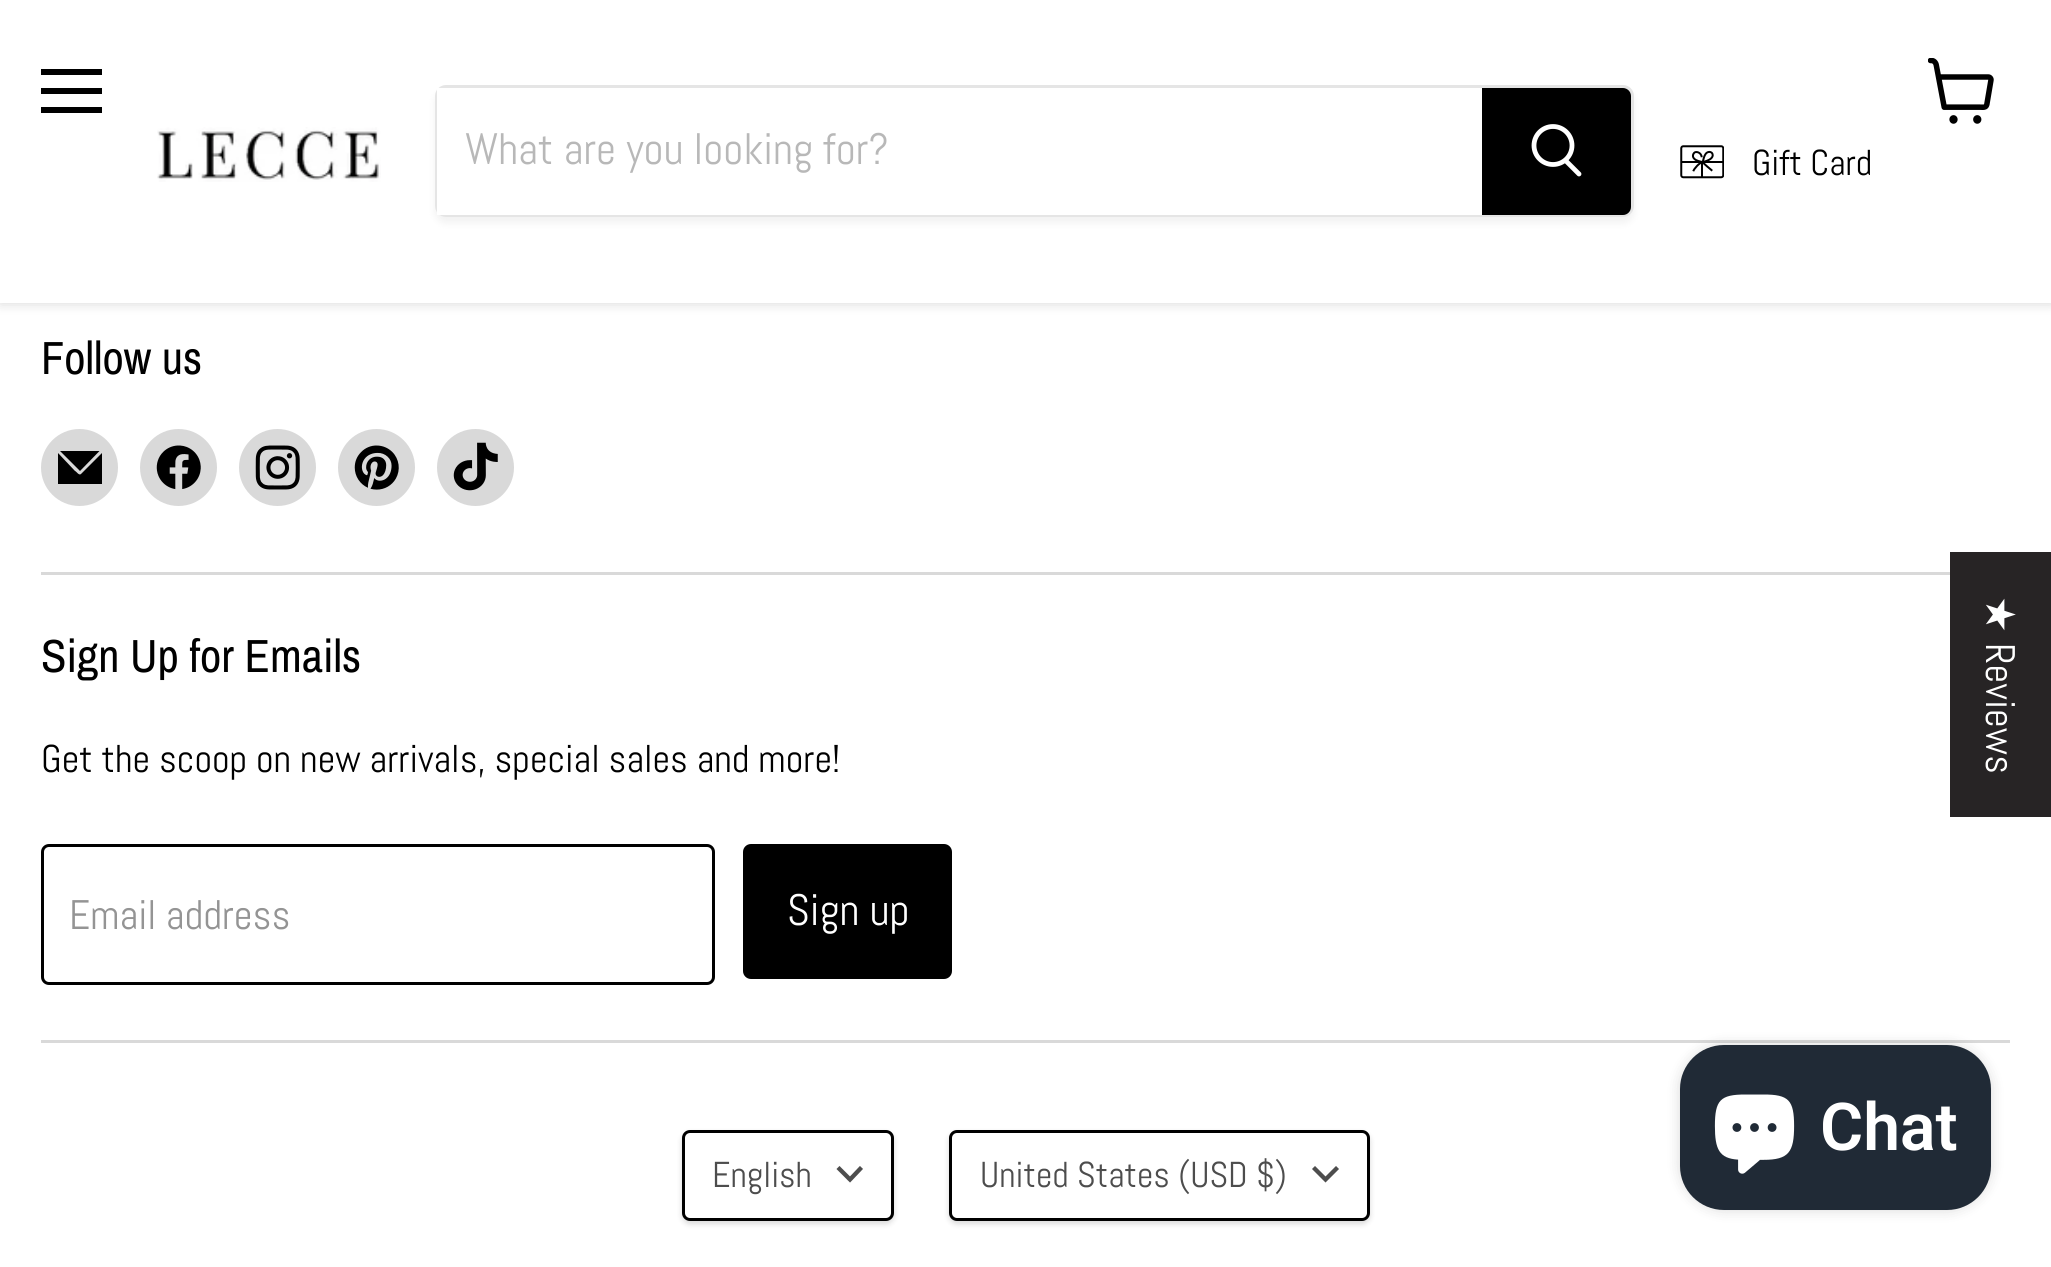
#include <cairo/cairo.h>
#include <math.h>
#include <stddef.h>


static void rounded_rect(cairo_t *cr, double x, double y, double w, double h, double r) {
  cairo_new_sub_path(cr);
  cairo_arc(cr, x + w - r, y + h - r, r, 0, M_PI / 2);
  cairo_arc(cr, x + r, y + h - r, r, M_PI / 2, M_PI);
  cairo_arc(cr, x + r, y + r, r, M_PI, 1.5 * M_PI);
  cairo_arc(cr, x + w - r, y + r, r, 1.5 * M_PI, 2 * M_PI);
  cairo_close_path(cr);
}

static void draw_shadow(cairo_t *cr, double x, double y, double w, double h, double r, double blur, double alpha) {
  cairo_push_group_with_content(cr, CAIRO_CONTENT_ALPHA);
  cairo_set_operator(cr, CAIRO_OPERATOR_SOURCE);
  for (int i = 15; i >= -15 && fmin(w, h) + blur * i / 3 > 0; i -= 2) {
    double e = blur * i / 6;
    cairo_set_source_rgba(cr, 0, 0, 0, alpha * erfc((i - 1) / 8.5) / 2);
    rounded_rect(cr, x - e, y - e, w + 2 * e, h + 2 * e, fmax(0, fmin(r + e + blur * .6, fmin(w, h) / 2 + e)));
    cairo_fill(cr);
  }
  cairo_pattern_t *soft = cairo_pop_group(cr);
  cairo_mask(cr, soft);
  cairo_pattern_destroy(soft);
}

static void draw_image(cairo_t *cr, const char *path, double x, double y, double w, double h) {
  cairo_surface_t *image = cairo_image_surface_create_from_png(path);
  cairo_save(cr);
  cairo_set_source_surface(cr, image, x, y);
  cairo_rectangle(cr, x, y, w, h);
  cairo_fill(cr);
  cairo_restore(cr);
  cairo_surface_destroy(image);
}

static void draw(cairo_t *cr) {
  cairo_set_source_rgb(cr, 1, 1, 1);
  cairo_paint(cr);
  cairo_set_source_rgb(cr, 128 / 255.0, 128 / 255.0, 128 / 255.0);
  draw_shadow(cr, 0, 3, 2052, 302, 0, 5.5, 0.25);
  cairo_set_source_rgb(cr, 1, 1, 1);
  cairo_rectangle(cr, 0, 0, 2051, 303);
  cairo_fill(cr);
  cairo_set_source_rgb(cr, 0, 0, 0);
  cairo_rectangle(cr, 41, 69, 61, 6);
  cairo_fill(cr);
  cairo_rectangle(cr, 41, 88, 61, 6);
  cairo_fill(cr);
  cairo_rectangle(cr, 41, 107, 61, 6);
  cairo_fill(cr);
  draw_image(cr, "images/1.png", 1928, 58, 66, 66);
  draw_image(cr, "images/2.png", 157, 127, 224, 55);
  cairo_save(cr);
  cairo_set_fill_rule(cr, CAIRO_FILL_RULE_EVEN_ODD);
  cairo_new_path(cr);
  cairo_move_to(cr, 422, 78);
  cairo_line_to(cr, 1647, 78);
  cairo_line_to(cr, 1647, 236);
  cairo_line_to(cr, 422, 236);
  cairo_close_path(cr);
  cairo_move_to(cr, 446, 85);
  cairo_line_to(cr, 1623, 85);
  cairo_curve_to(cr, 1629, 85, 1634, 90, 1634, 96);
  cairo_line_to(cr, 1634, 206);
  cairo_curve_to(cr, 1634, 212, 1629, 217, 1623, 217);
  cairo_line_to(cr, 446, 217);
  cairo_curve_to(cr, 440, 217, 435, 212, 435, 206);
  cairo_line_to(cr, 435, 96);
  cairo_curve_to(cr, 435, 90, 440, 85, 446, 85);
  cairo_close_path(cr);
  cairo_clip(cr);
  cairo_set_source_rgb(cr, 128 / 255.0, 128 / 255.0, 128 / 255.0);
  draw_shadow(cr, 435, 91, 1199, 132, 11, 4, 0.11);
  cairo_restore(cr);
  rounded_rect(cr, 436.5, 86.5, 1196, 129, 9.5);
  cairo_set_source_rgba(cr, 128 / 255.0, 128 / 255.0, 128 / 255.0, 0.2);
  cairo_set_line_width(cr, 3);
  cairo_stroke(cr);
  cairo_set_source_rgb(cr, 1, 1, 1);
  cairo_rectangle(cr, 437, 88, 1045, 127);
  cairo_fill(cr);
  cairo_set_source_rgb(cr, 0, 0, 0);
  cairo_new_path(cr);
  cairo_move_to(cr, 1483.5, 89.5);
  cairo_line_to(cr, 1623, 89.5);
  cairo_curve_to(cr, 1626.5, 89.5, 1629.5, 92.5, 1629.5, 96);
  cairo_line_to(cr, 1629.5, 207);
  cairo_curve_to(cr, 1629.5, 210.5, 1626.5, 213.5, 1623, 213.5);
  cairo_line_to(cr, 1483.5, 213.5);
  cairo_close_path(cr);
  cairo_fill_preserve(cr);
  cairo_stroke(cr);
  cairo_new_path(cr);
  cairo_move_to(cr, 1579, 174);
  cairo_line_to(cr, 1566, 161);
  cairo_set_source_rgb(cr, 1, 1, 1);
  cairo_set_line_width(cr, 4.8);
  cairo_set_line_cap(cr, CAIRO_LINE_CAP_ROUND);
  cairo_stroke(cr);
  cairo_arc(cr, 1553, 145.5, 19, 0, 2 * M_PI);
  cairo_set_line_cap(cr, CAIRO_LINE_CAP_BUTT);
  cairo_stroke(cr);
  draw_image(cr, "images/3.png", 1680, 145, 44, 34);
  cairo_set_source_rgb(cr, 217 / 255.0, 217 / 255.0, 217 / 255.0);
  cairo_rectangle(cr, 41, 572, 1909, 3);
  cairo_fill(cr);
  cairo_arc(cr, 79.5, 467.5, 38.5, 0, 2 * M_PI);
  cairo_fill(cr);
  cairo_set_source_rgb(cr, 0, 0, 0);
  cairo_new_path(cr);
  cairo_move_to(cr, 81, 474);
  cairo_curve_to(cr, 79, 476, 76, 471, 75, 471);
  cairo_line_to(cr, 58, 453);
  cairo_line_to(cr, 58, 484);
  cairo_line_to(cr, 102, 484);
  cairo_line_to(cr, 102, 453);
  cairo_close_path(cr);
  cairo_fill(cr);
  cairo_new_path(cr);
  cairo_move_to(cr, 99.5, 451);
  cairo_line_to(cr, 60, 451);
  cairo_line_to(cr, 80, 471);
  cairo_close_path(cr);
  cairo_fill(cr);
  cairo_set_source_rgb(cr, 217 / 255.0, 217 / 255.0, 217 / 255.0);
  cairo_arc(cr, 178.5, 467.5, 38.5, 0, 2 * M_PI);
  cairo_fill(cr);
  draw_image(cr, "images/4.png", 156, 445, 45, 45);
  cairo_arc(cr, 277.5, 467.5, 38.5, 0, 2 * M_PI);
  cairo_fill(cr);
  draw_image(cr, "images/5.png", 255, 445, 45, 45);
  cairo_arc(cr, 376.5, 467.5, 38.5, 0, 2 * M_PI);
  cairo_fill(cr);
  draw_image(cr, "images/6.png", 354, 445, 45, 45);
  cairo_arc(cr, 475.5, 467.5, 38.5, 0, 2 * M_PI);
  cairo_fill(cr);
  draw_image(cr, "images/7.png", 453, 442, 45, 49);
  cairo_rectangle(cr, 41, 1040, 1969, 3);
  cairo_fill(cr);
  rounded_rect(cr, 42.5, 845.5, 671, 138, 6.5);
  cairo_set_source_rgb(cr, 0, 0, 0);
  cairo_set_line_width(cr, 3);
  cairo_stroke(cr);
  rounded_rect(cr, 744.5, 845.5, 206, 132, 6.5);
  cairo_fill_preserve(cr);
  cairo_stroke(cr);
  cairo_set_source_rgb(cr, 0, 0, 0);
  draw_shadow(cr, 682, 1133, 212, 91, 8, 3, 0.15);
  cairo_set_source_rgb(cr, 1, 1, 1);
  rounded_rect(cr, 683.5, 1131.5, 209, 88, 6.5);
  cairo_fill_preserve(cr);
  cairo_set_source_rgb(cr, 0, 0, 0);
  cairo_stroke(cr);
  cairo_new_path(cr);
  cairo_move_to(cr, 850, 1179.5);
  cairo_line_to(cr, 860, 1169);
  cairo_move_to(cr, 850, 1179.5);
  cairo_line_to(cr, 839.5, 1169);
  cairo_set_source_rgb(cr, 77 / 255.0, 77 / 255.0, 77 / 255.0);
  cairo_set_line_width(cr, 4.3);
  cairo_set_line_cap(cr, CAIRO_LINE_CAP_SQUARE);
  cairo_stroke(cr);
  cairo_set_source_rgb(cr, 0, 0, 0);
  draw_shadow(cr, 949, 1133, 421, 91, 8, 3, 0.15);
  cairo_set_source_rgb(cr, 1, 1, 1);
  rounded_rect(cr, 950.5, 1131.5, 418, 88, 6.5);
  cairo_fill_preserve(cr);
  cairo_set_source_rgb(cr, 0, 0, 0);
  cairo_set_line_width(cr, 3);
  cairo_set_line_cap(cr, CAIRO_LINE_CAP_BUTT);
  cairo_stroke(cr);
  cairo_new_path(cr);
  cairo_move_to(cr, 1325.5, 1179.5);
  cairo_line_to(cr, 1336, 1169);
  cairo_move_to(cr, 1325.5, 1179.5);
  cairo_line_to(cr, 1315, 1169);
  cairo_set_source_rgb(cr, 77 / 255.0, 77 / 255.0, 77 / 255.0);
  cairo_set_line_width(cr, 4.3);
  cairo_set_line_cap(cr, CAIRO_LINE_CAP_SQUARE);
  cairo_stroke(cr);
  cairo_set_source_rgb(cr, 39 / 255.0, 36 / 255.0, 37 / 255.0);
  cairo_rectangle(cr, 1950, 552, 101, 265);
  cairo_fill(cr);
  cairo_set_source_rgb(cr, 0, 0, 0);
  draw_shadow(cr, 1680, 1045, 311, 165, 44, 7, 0.15);
  cairo_set_source_rgb(cr, 32 / 255.0, 42 / 255.0, 54 / 255.0);
  rounded_rect(cr, 1680, 1045, 311, 165, 44);
  cairo_fill(cr);
  draw_image(cr, "images/8.png", 1714, 1094, 81, 80);
  cairo_select_font_face(cr, "Abel", CAIRO_FONT_SLANT_NORMAL, CAIRO_FONT_WEIGHT_NORMAL);
  cairo_set_font_size(cr, 44);
  cairo_set_source_rgb(cr, 184 / 255.0, 184 / 255.0, 184 / 255.0);
  cairo_move_to(cr, 465, 164);
  cairo_show_text(cr, "What are you looking for?");
  cairo_set_font_size(cr, 36);
  cairo_set_source_rgb(cr, 0, 0, 0);
  cairo_move_to(cr, 1752, 175);
  cairo_show_text(cr, "Gift Card");
  cairo_select_font_face(cr, "Archivo Narrow", CAIRO_FONT_SLANT_NORMAL, CAIRO_FONT_WEIGHT_NORMAL);
  cairo_set_font_size(cr, 46.5);
  cairo_move_to(cr, 41, 374);
  cairo_show_text(cr, "Follow us");
  cairo_move_to(cr, 41, 672);
  cairo_show_text(cr, "Sign Up for Emails");
  cairo_select_font_face(cr, "Abel", CAIRO_FONT_SLANT_NORMAL, CAIRO_FONT_WEIGHT_NORMAL);
  cairo_set_font_size(cr, 38.7);
  cairo_move_to(cr, 41, 772);
  cairo_show_text(cr, "Get the scoop on new arrivals, special sales and more!");
  cairo_set_font_size(cr, 41.25);
  cairo_set_source_rgb(cr, 148 / 255.0, 148 / 255.0, 148 / 255.0);
  cairo_move_to(cr, 69, 929);
  cairo_show_text(cr, "Email address");
  cairo_set_font_size(cr, 44);
  cairo_set_source_rgb(cr, 1, 1, 1);
  cairo_move_to(cr, 787, 925);
  cairo_show_text(cr, "Sign up");
  cairo_set_font_size(cr, 36);
  cairo_set_source_rgb(cr, 77 / 255.0, 77 / 255.0, 77 / 255.0);
  cairo_move_to(cr, 712, 1187);
  cairo_show_text(cr, "English");
  cairo_move_to(cr, 980, 1187);
  cairo_show_text(cr, "United States (USD $)");
  cairo_select_font_face(cr, "DejaVu Sans", CAIRO_FONT_SLANT_NORMAL, CAIRO_FONT_WEIGHT_NORMAL);
  cairo_set_font_size(cr, 41.25);
  cairo_set_source_rgb(cr, 1, 1, 1);
  cairo_save(cr);
  cairo_translate(cr, 1986, 596);
  cairo_rotate(cr, 90 * M_PI / 180);
  cairo_move_to(cr, 0, 0);
  cairo_show_text(cr, "★");
  cairo_restore(cr);
  cairo_select_font_face(cr, "Abel", CAIRO_FONT_SLANT_NORMAL, CAIRO_FONT_WEIGHT_NORMAL);
  cairo_save(cr);
  cairo_translate(cr, 1986, 643);
  cairo_rotate(cr, 90 * M_PI / 180);
  cairo_move_to(cr, 0, 0);
  cairo_show_text(cr, "Reviews");
  cairo_restore(cr);
  cairo_select_font_face(cr, "Roboto SemiBold", CAIRO_FONT_SLANT_NORMAL, CAIRO_FONT_WEIGHT_NORMAL);
  cairo_set_font_size(cr, 66);
  cairo_move_to(cr, 1820, 1150);
  cairo_show_text(cr, "Chat");
}

int main(void) {
  cairo_surface_t *surface = cairo_image_surface_create(CAIRO_FORMAT_RGB24, 2051, 1267);
  cairo_t *cr = cairo_create(surface);
  cairo_font_options_t *options = cairo_font_options_create();
  cairo_font_options_set_hint_metrics(options, CAIRO_HINT_METRICS_OFF);
  cairo_font_options_set_hint_style(options, CAIRO_HINT_STYLE_NONE);
  cairo_set_font_options(cr, options);
  cairo_set_miter_limit(cr, 4);
  draw(cr);
  cairo_surface_write_to_png(surface, "out.png");
  cairo_font_options_destroy(options);
  cairo_destroy(cr);
  cairo_surface_destroy(surface);
  return 0;
}
